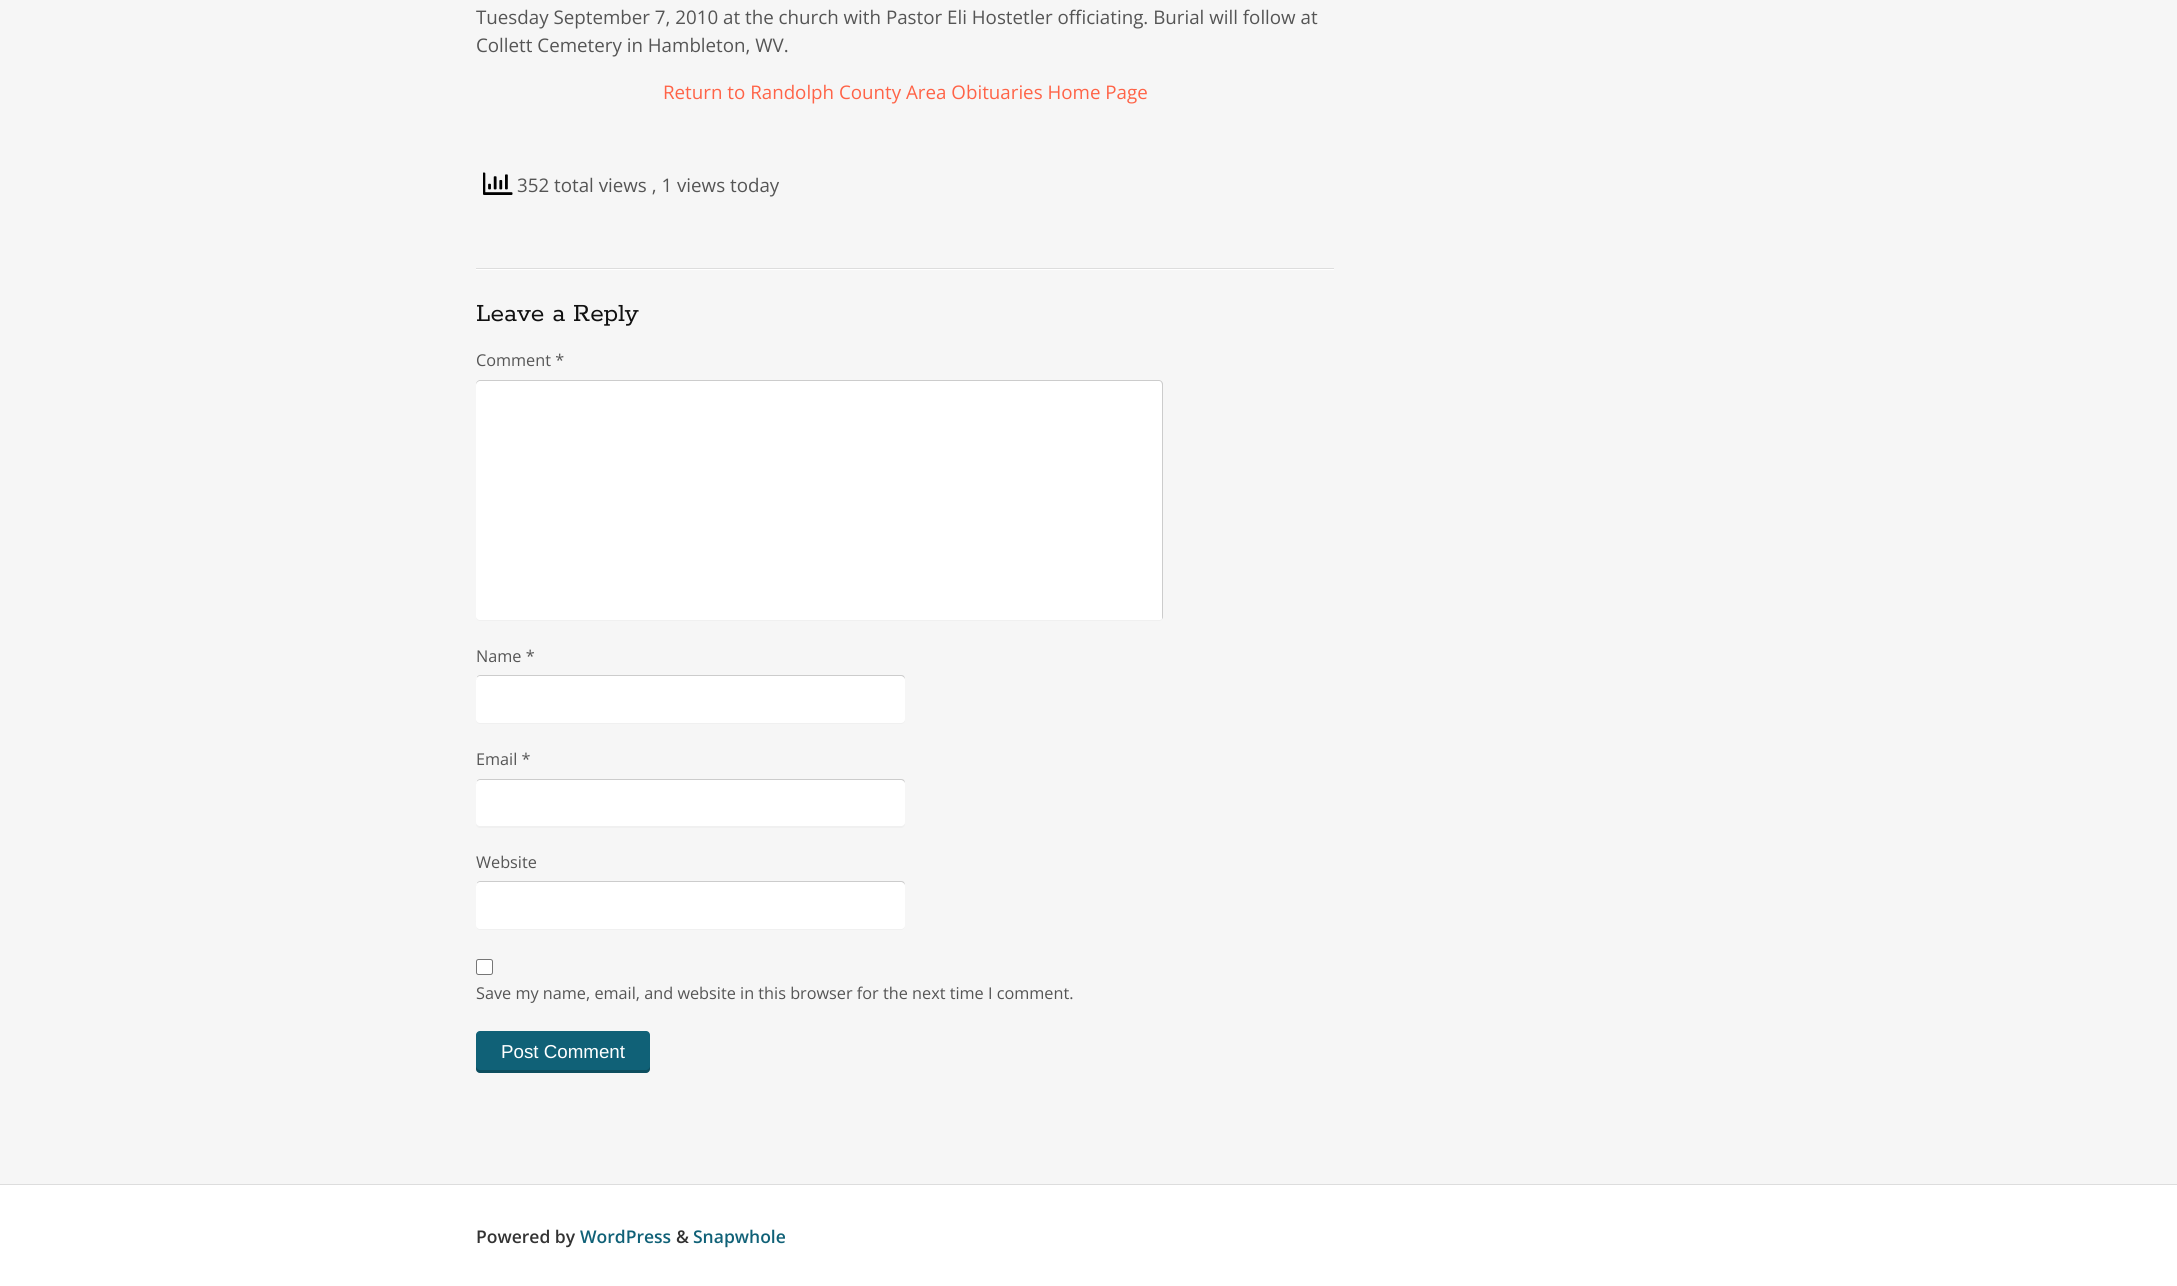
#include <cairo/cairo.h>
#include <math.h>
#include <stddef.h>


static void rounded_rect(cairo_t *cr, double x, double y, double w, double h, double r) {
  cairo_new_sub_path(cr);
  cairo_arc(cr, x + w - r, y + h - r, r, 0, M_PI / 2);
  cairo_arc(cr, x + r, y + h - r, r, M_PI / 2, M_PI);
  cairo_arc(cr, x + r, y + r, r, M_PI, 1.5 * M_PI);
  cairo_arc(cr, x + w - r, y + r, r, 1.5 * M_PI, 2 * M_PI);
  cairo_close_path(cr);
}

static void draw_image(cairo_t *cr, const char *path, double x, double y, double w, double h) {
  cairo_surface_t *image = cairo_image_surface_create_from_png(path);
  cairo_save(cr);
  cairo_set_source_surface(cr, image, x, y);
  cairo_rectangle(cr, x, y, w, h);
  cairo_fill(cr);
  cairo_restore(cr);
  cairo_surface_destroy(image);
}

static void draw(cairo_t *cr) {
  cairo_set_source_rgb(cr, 246 / 255.0, 246 / 255.0, 246 / 255.0);
  cairo_paint(cr);
  draw_image(cr, "images/1.png", 483, 172, 30, 23);
  cairo_set_source_rgb(cr, 1, 1, 1);
  cairo_rectangle(cr, 476, 269, 858, 1);
  cairo_fill(cr);
  cairo_set_source_rgb(cr, 221 / 255.0, 221 / 255.0, 221 / 255.0);
  cairo_rectangle(cr, 476, 268, 858, 1);
  cairo_fill(cr);
  cairo_set_source_rgb(cr, 240 / 255.0, 240 / 255.0, 240 / 255.0);
  cairo_new_path(cr);
  cairo_move_to(cr, 476, 384);
  cairo_line_to(cr, 476, 617);
  cairo_curve_to(cr, 476, 619, 478, 621, 480, 621);
  cairo_line_to(cr, 1159, 621);
  cairo_curve_to(cr, 1161, 621, 1163, 619, 1163, 617);
  cairo_line_to(cr, 1163, 385);
  cairo_line_to(cr, 1162, 383);
  cairo_line_to(cr, 1162, 616);
  cairo_curve_to(cr, 1162, 618, 1161, 620, 1159, 620);
  cairo_line_to(cr, 480, 620);
  cairo_curve_to(cr, 478, 620, 476, 618, 476, 616);
  cairo_close_path(cr);
  cairo_fill(cr);
  cairo_set_source_rgb(cr, 1, 1, 1);
  rounded_rect(cr, 476, 380, 687, 240, 4);
  cairo_fill(cr);
  cairo_set_source_rgba(cr, 0, 0, 0, 0.2);
  cairo_new_path(cr);
  cairo_move_to(cr, 480, 381);
  cairo_line_to(cr, 1159, 381);
  cairo_curve_to(cr, 1161, 381, 1162, 383, 1162, 385);
  cairo_line_to(cr, 1162, 619);
  cairo_curve_to(cr, 1163, 618, 1163, 617, 1163, 616);
  cairo_line_to(cr, 1163, 384);
  cairo_curve_to(cr, 1163, 382, 1161, 380, 1159, 380);
  cairo_line_to(cr, 480, 380);
  cairo_curve_to(cr, 478, 380, 476, 382, 476, 384);
  cairo_line_to(cr, 476, 385);
  cairo_curve_to(cr, 476, 383, 478, 381, 480, 381);
  cairo_close_path(cr);
  cairo_fill(cr);
  cairo_set_source_rgb(cr, 240 / 255.0, 240 / 255.0, 240 / 255.0);
  cairo_new_path(cr);
  cairo_move_to(cr, 476, 679);
  cairo_line_to(cr, 476, 720);
  cairo_curve_to(cr, 476, 722, 478, 724, 480, 724);
  cairo_line_to(cr, 901, 724);
  cairo_curve_to(cr, 903, 724, 905, 722, 905, 720);
  cairo_line_to(cr, 905, 719);
  cairo_curve_to(cr, 905, 721, 903, 722, 901, 722);
  cairo_line_to(cr, 480, 722);
  cairo_curve_to(cr, 478, 722, 476, 721, 476, 719);
  cairo_close_path(cr);
  cairo_fill(cr);
  cairo_set_source_rgb(cr, 1, 1, 1);
  rounded_rect(cr, 476, 675, 429, 48, 4);
  cairo_fill(cr);
  cairo_set_source_rgba(cr, 0, 0, 0, 0.2);
  cairo_new_path(cr);
  cairo_move_to(cr, 480, 676);
  cairo_line_to(cr, 901, 676);
  cairo_curve_to(cr, 903, 676, 905, 678, 905, 680);
  cairo_curve_to(cr, 905, 677, 904, 675, 901, 675);
  cairo_line_to(cr, 480, 675);
  cairo_curve_to(cr, 479, 675, 477, 676, 477, 677);
  cairo_line_to(cr, 476, 680);
  cairo_curve_to(cr, 476, 678, 478, 676, 480, 676);
  cairo_close_path(cr);
  cairo_fill(cr);
  cairo_set_source_rgb(cr, 240 / 255.0, 240 / 255.0, 240 / 255.0);
  cairo_new_path(cr);
  cairo_move_to(cr, 476, 783);
  cairo_line_to(cr, 476, 824);
  cairo_curve_to(cr, 476, 826, 478, 828, 480, 828);
  cairo_line_to(cr, 901, 828);
  cairo_curve_to(cr, 903, 828, 905, 826, 905, 824);
  cairo_line_to(cr, 905, 822);
  cairo_curve_to(cr, 905, 825, 903, 826, 901, 826);
  cairo_line_to(cr, 480, 826);
  cairo_curve_to(cr, 478, 826, 476, 825, 476, 822);
  cairo_close_path(cr);
  cairo_fill(cr);
  cairo_set_source_rgb(cr, 1, 1, 1);
  rounded_rect(cr, 476, 779, 429, 47, 4);
  cairo_fill(cr);
  cairo_set_source_rgba(cr, 0, 0, 0, 0.2);
  cairo_new_path(cr);
  cairo_move_to(cr, 480, 780);
  cairo_line_to(cr, 901, 780);
  cairo_curve_to(cr, 903, 780, 905, 782, 905, 784);
  cairo_curve_to(cr, 905, 781, 904, 779, 901, 779);
  cairo_line_to(cr, 480, 779);
  cairo_curve_to(cr, 479, 779, 477, 780, 477, 781);
  cairo_line_to(cr, 476, 784);
  cairo_curve_to(cr, 476, 782, 478, 780, 480, 780);
  cairo_close_path(cr);
  cairo_fill(cr);
  cairo_set_source_rgb(cr, 240 / 255.0, 240 / 255.0, 240 / 255.0);
  cairo_new_path(cr);
  cairo_move_to(cr, 476, 886);
  cairo_line_to(cr, 476, 920);
  cairo_curve_to(cr, 476, 922, 475, 930, 480, 930);
  cairo_line_to(cr, 902, 930);
  cairo_curve_to(cr, 904, 929, 905, 927, 905, 925);
  cairo_curve_to(cr, 905, 927, 903, 929, 901, 929);
  cairo_line_to(cr, 480, 929);
  cairo_curve_to(cr, 478, 929, 476, 927, 476, 925);
  cairo_close_path(cr);
  cairo_fill(cr);
  cairo_set_source_rgb(cr, 1, 1, 1);
  rounded_rect(cr, 476, 881, 429, 48, 4);
  cairo_fill(cr);
  cairo_set_source_rgba(cr, 0, 0, 0, 0.2);
  cairo_new_path(cr);
  cairo_move_to(cr, 480, 882);
  cairo_line_to(cr, 901, 882);
  cairo_curve_to(cr, 903, 882, 905, 884, 905, 886);
  cairo_curve_to(cr, 905, 883, 904, 881, 901, 881);
  cairo_line_to(cr, 480, 881);
  cairo_curve_to(cr, 479, 881, 477, 882, 477, 883);
  cairo_line_to(cr, 476, 886);
  cairo_curve_to(cr, 476, 884, 478, 882, 480, 882);
  cairo_close_path(cr);
  cairo_fill(cr);
  cairo_set_source_rgb(cr, 1, 1, 1);
  rounded_rect(cr, 476.5, 959.5, 16, 15, 2);
  cairo_fill_preserve(cr);
  cairo_set_source_rgb(cr, 118 / 255.0, 118 / 255.0, 118 / 255.0);
  cairo_set_line_width(cr, 1);
  cairo_stroke(cr);
  cairo_set_source_rgb(cr, 16 / 255.0, 97 / 255.0, 119 / 255.0);
  rounded_rect(cr, 476, 1031, 174, 42, 4);
  cairo_fill(cr);
  cairo_set_source_rgba(cr, 0, 0, 0, 0.2);
  cairo_new_path(cr);
  cairo_move_to(cr, 476, 1066);
  cairo_line_to(cr, 476, 1069);
  cairo_curve_to(cr, 476, 1071, 478, 1073, 480, 1073);
  cairo_line_to(cr, 646, 1073);
  cairo_curve_to(cr, 648, 1073, 650, 1071, 650, 1069);
  cairo_line_to(cr, 650, 1066);
  cairo_curve_to(cr, 650, 1068, 648, 1070, 646, 1070);
  cairo_line_to(cr, 480, 1070);
  cairo_curve_to(cr, 478, 1070, 476, 1068, 476, 1066);
  cairo_close_path(cr);
  cairo_fill(cr);
  cairo_set_source_rgb(cr, 1, 1, 1);
  cairo_rectangle(cr, 0, 1185, 2177, 101);
  cairo_fill(cr);
  cairo_set_source_rgb(cr, 221 / 255.0, 221 / 255.0, 221 / 255.0);
  cairo_rectangle(cr, 0, 1184, 2177, 1);
  cairo_fill(cr);
  cairo_select_font_face(cr, "Open Sans", CAIRO_FONT_SLANT_NORMAL, CAIRO_FONT_WEIGHT_NORMAL);
  cairo_set_font_size(cr, 18.75);
  cairo_set_source_rgb(cr, 85 / 255.0, 85 / 255.0, 85 / 255.0);
  cairo_move_to(cr, 476, 24);
  cairo_show_text(cr, "Tuesday September 7, 2010 at the church with Pastor Eli Hostetler officiating. Burial will follow at");
  cairo_move_to(cr, 476, 52);
  cairo_show_text(cr, "Collett Cemetery in Hambleton, WV.");
  cairo_set_source_rgb(cr, 1, 99 / 255.0, 71 / 255.0);
  cairo_move_to(cr, 663, 99);
  cairo_show_text(cr, "Return to Randolph County Area Obituaries Home Page");
  cairo_set_source_rgb(cr, 85 / 255.0, 85 / 255.0, 85 / 255.0);
  cairo_move_to(cr, 517, 192);
  cairo_show_text(cr, "352 total views , 1 views today");
  cairo_select_font_face(cr, "Rokkitt", CAIRO_FONT_SLANT_NORMAL, CAIRO_FONT_WEIGHT_NORMAL);
  cairo_set_font_size(cr, 27.5);
  cairo_set_source_rgb(cr, 17 / 255.0, 17 / 255.0, 17 / 255.0);
  cairo_move_to(cr, 476, 321);
  cairo_show_text(cr, "Leave a Reply");
  cairo_select_font_face(cr, "Open Sans", CAIRO_FONT_SLANT_NORMAL, CAIRO_FONT_WEIGHT_NORMAL);
  cairo_set_font_size(cr, 16.25);
  cairo_set_source_rgb(cr, 85 / 255.0, 85 / 255.0, 85 / 255.0);
  cairo_move_to(cr, 476, 366);
  cairo_show_text(cr, "Comment *");
  cairo_move_to(cr, 476, 662);
  cairo_show_text(cr, "Name *");
  cairo_move_to(cr, 476, 765);
  cairo_show_text(cr, "Email *");
  cairo_move_to(cr, 476, 868);
  cairo_show_text(cr, "Website");
  cairo_move_to(cr, 476, 999);
  cairo_show_text(cr, "Save my name, email, and website in this browser for the next time I comment.");
  cairo_select_font_face(cr, "Liberation Sans", CAIRO_FONT_SLANT_NORMAL, CAIRO_FONT_WEIGHT_NORMAL);
  cairo_set_font_size(cr, 18.75);
  cairo_set_source_rgb(cr, 1, 1, 1);
  cairo_move_to(cr, 501, 1058);
  cairo_show_text(cr, "Post Comment");
  cairo_select_font_face(cr, "Open Sans SemiBold", CAIRO_FONT_SLANT_NORMAL, CAIRO_FONT_WEIGHT_NORMAL);
  cairo_set_font_size(cr, 17.5);
  cairo_set_source_rgb(cr, 51 / 255.0, 51 / 255.0, 51 / 255.0);
  cairo_move_to(cr, 476, 1243);
  cairo_show_text(cr, "Powered by");
  cairo_set_source_rgb(cr, 16 / 255.0, 97 / 255.0, 119 / 255.0);
  cairo_move_to(cr, 580, 1243);
  cairo_show_text(cr, "WordPress");
  cairo_set_source_rgb(cr, 51 / 255.0, 51 / 255.0, 51 / 255.0);
  cairo_move_to(cr, 676, 1243);
  cairo_show_text(cr, "&");
  cairo_set_source_rgb(cr, 16 / 255.0, 97 / 255.0, 119 / 255.0);
  cairo_move_to(cr, 693, 1243);
  cairo_show_text(cr, "Snapwhole");
}

int main(void) {
  cairo_surface_t *surface = cairo_image_surface_create(CAIRO_FORMAT_RGB24, 2177, 1286);
  cairo_t *cr = cairo_create(surface);
  cairo_font_options_t *options = cairo_font_options_create();
  cairo_font_options_set_hint_metrics(options, CAIRO_HINT_METRICS_OFF);
  cairo_font_options_set_hint_style(options, CAIRO_HINT_STYLE_NONE);
  cairo_set_font_options(cr, options);
  cairo_set_miter_limit(cr, 4);
  draw(cr);
  cairo_surface_write_to_png(surface, "out.png");
  cairo_font_options_destroy(options);
  cairo_destroy(cr);
  cairo_surface_destroy(surface);
  return 0;
}
